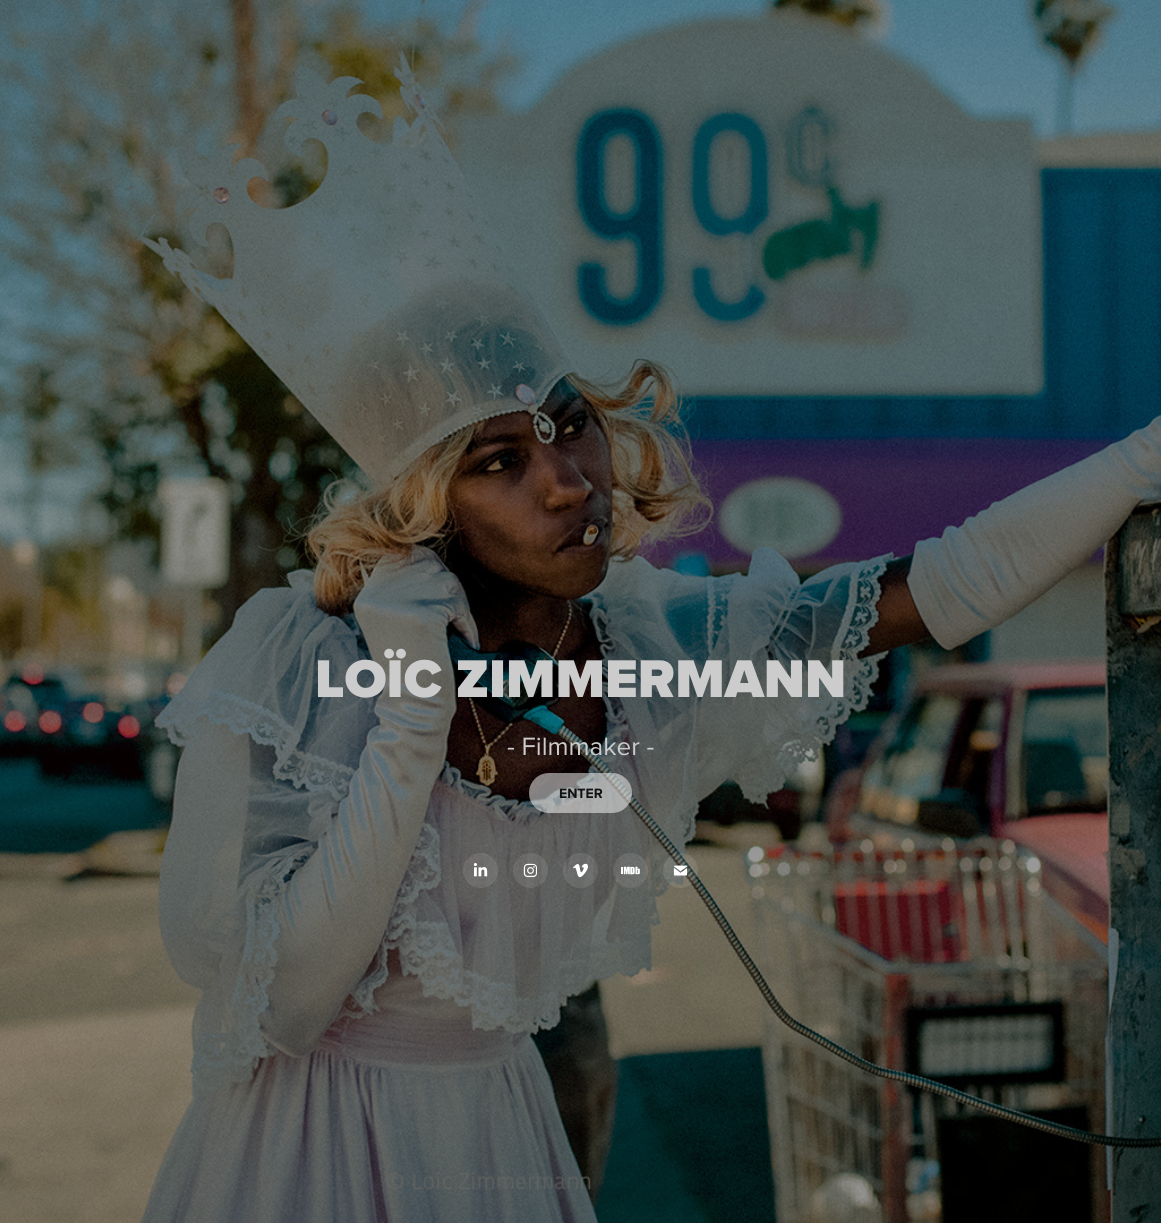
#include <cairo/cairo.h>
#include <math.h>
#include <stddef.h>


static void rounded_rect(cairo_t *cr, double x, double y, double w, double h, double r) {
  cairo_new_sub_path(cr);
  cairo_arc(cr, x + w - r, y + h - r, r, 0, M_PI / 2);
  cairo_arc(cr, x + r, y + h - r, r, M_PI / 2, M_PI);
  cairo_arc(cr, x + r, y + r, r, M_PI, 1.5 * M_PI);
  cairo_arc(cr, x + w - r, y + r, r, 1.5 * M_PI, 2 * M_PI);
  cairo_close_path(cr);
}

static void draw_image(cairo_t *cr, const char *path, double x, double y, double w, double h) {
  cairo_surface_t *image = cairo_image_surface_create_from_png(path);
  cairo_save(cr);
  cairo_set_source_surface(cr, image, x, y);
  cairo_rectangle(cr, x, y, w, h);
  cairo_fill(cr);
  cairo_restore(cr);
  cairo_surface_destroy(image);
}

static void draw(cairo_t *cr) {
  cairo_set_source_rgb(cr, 1, 1, 1);
  cairo_paint(cr);
  draw_image(cr, "images/1.png", 0, 0, 1161, 1223);
  cairo_set_source_rgba(cr, 1, 1, 1, 0.5);
  rounded_rect(cr, 529, 773, 103, 40, 20);
  cairo_fill(cr);
  cairo_set_source_rgba(cr, 1, 1, 1, 0.1);
  cairo_arc(cr, 480.5, 870.5, 17.5, 0, 2 * M_PI);
  cairo_fill(cr);
  draw_image(cr, "images/2.png", 473, 863, 15, 14);
  cairo_arc(cr, 530.5, 870.5, 17.5, 0, 2 * M_PI);
  cairo_fill(cr);
  draw_image(cr, "images/3.png", 523, 863, 14, 15);
  cairo_arc(cr, 580.5, 870.5, 17.5, 0, 2 * M_PI);
  cairo_fill(cr);
  draw_image(cr, "images/4.png", 573, 863, 15, 15);
  cairo_arc(cr, 630.5, 870.5, 17.5, 0, 2 * M_PI);
  cairo_fill(cr);
  draw_image(cr, "images/5.png", 621, 866, 19, 9);
  cairo_arc(cr, 680.5, 870.5, 17.5, 0, 2 * M_PI);
  cairo_fill(cr);
  draw_image(cr, "images/6.png", 673, 865, 15, 11);
  cairo_select_font_face(cr, "Proxima Nova Black", CAIRO_FONT_SLANT_NORMAL, CAIRO_FONT_WEIGHT_NORMAL);
  cairo_set_font_size(cr, 55);
  cairo_set_source_rgb(cr, 204 / 255.0, 204 / 255.0, 204 / 255.0);
  cairo_move_to(cr, 315, 697);
  cairo_show_text(cr, "LOÏC ZIMMERMANN");
  cairo_select_font_face(cr, "Proxima Nova", CAIRO_FONT_SLANT_NORMAL, CAIRO_FONT_WEIGHT_NORMAL);
  cairo_set_font_size(cr, 26);
  cairo_move_to(cr, 507, 755);
  cairo_show_text(cr, "- Filmmaker -");
  cairo_select_font_face(cr, "Proxima Nova", CAIRO_FONT_SLANT_NORMAL, CAIRO_FONT_WEIGHT_BOLD);
  cairo_set_font_size(cr, 14);
  cairo_set_source_rgb(cr, 17 / 255.0, 17 / 255.0, 17 / 255.0);
  cairo_move_to(cr, 559, 798);
  cairo_show_text(cr, "ENTER");
}

int main(void) {
  cairo_surface_t *surface = cairo_image_surface_create(CAIRO_FORMAT_RGB24, 1161, 1223);
  cairo_t *cr = cairo_create(surface);
  cairo_font_options_t *options = cairo_font_options_create();
  cairo_font_options_set_hint_metrics(options, CAIRO_HINT_METRICS_OFF);
  cairo_font_options_set_hint_style(options, CAIRO_HINT_STYLE_NONE);
  cairo_set_font_options(cr, options);
  cairo_set_miter_limit(cr, 4);
  draw(cr);
  cairo_surface_write_to_png(surface, "out.png");
  cairo_font_options_destroy(options);
  cairo_destroy(cr);
  cairo_surface_destroy(surface);
  return 0;
}
